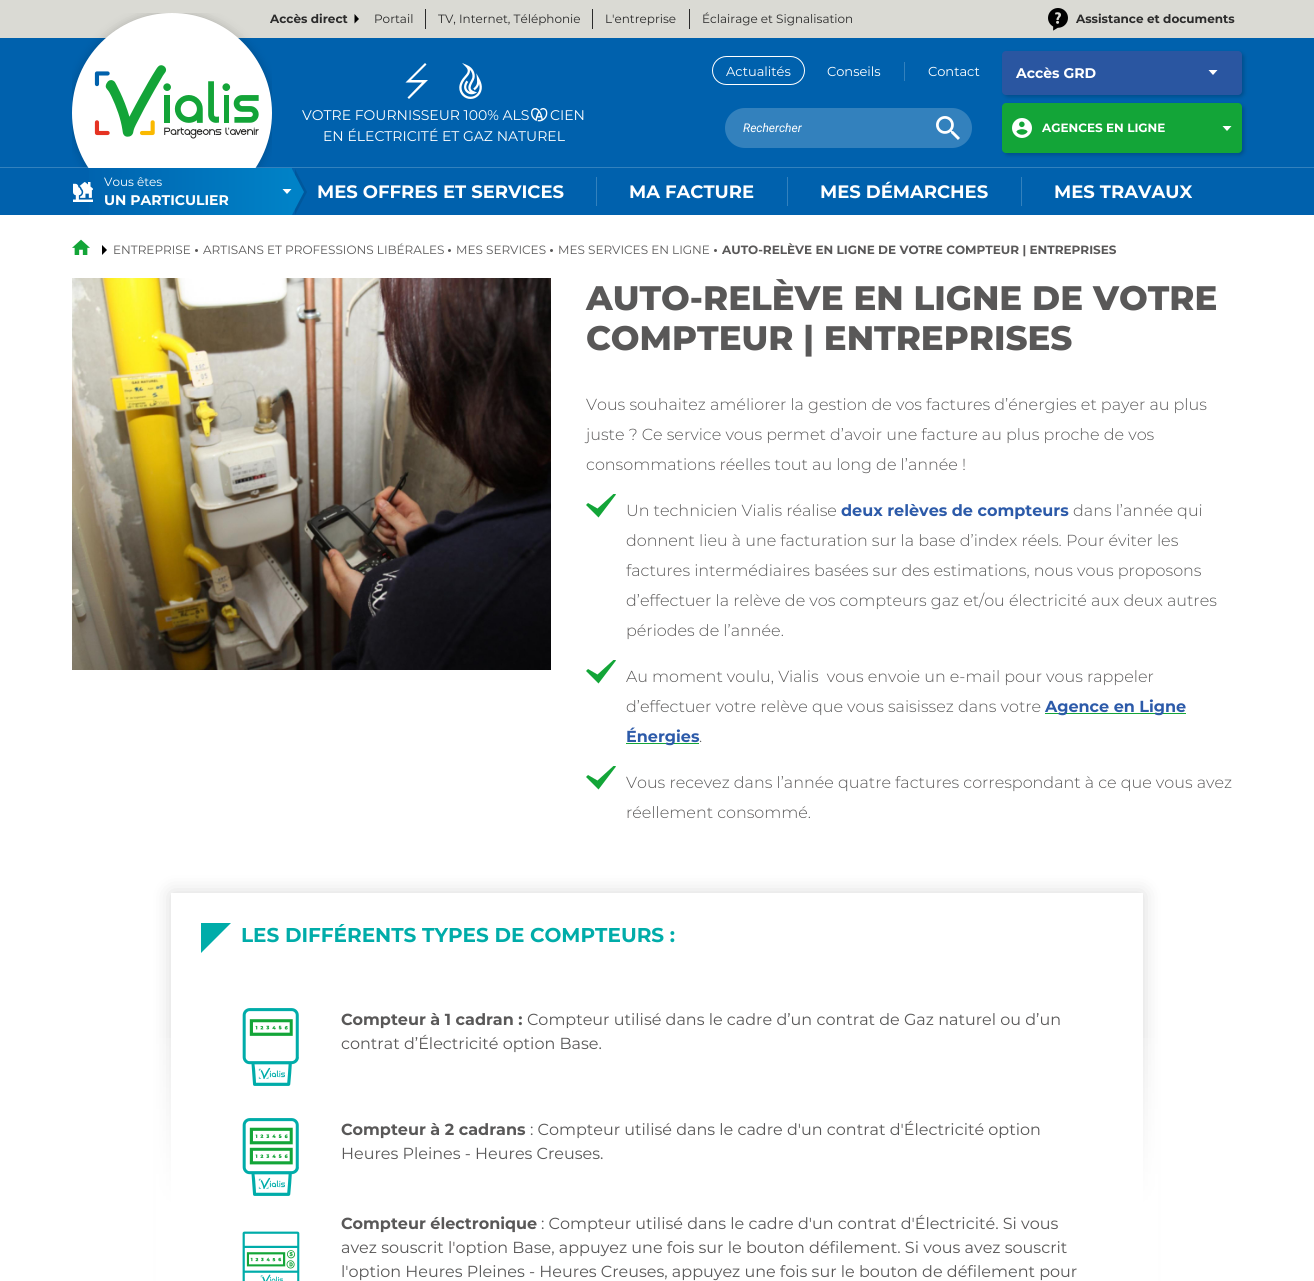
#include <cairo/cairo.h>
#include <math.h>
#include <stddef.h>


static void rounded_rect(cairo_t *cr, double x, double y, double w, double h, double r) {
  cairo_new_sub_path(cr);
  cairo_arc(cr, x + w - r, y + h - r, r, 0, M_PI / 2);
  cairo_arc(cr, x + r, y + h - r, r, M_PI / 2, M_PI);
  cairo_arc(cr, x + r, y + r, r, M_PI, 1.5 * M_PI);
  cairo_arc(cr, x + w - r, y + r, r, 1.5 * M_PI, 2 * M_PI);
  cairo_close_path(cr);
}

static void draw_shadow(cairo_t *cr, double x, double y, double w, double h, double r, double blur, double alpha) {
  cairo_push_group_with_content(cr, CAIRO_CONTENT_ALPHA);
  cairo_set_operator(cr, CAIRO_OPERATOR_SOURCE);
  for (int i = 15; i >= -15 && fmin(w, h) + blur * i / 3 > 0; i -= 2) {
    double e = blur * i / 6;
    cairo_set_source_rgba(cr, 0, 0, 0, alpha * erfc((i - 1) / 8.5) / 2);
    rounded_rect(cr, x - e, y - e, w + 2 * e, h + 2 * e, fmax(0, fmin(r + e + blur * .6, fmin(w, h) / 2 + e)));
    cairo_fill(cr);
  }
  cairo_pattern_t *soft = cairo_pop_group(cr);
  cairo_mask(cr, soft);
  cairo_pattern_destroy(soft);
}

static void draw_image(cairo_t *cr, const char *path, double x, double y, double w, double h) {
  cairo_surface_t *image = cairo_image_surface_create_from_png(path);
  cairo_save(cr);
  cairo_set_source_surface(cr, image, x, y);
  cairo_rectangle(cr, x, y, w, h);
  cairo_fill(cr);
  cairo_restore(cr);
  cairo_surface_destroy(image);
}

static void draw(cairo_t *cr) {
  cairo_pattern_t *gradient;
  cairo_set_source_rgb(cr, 1, 1, 1);
  cairo_paint(cr);
  cairo_set_source_rgb(cr, 218 / 255.0, 218 / 255.0, 212 / 255.0);
  cairo_rectangle(cr, 0, 0, 1314, 38);
  cairo_fill(cr);
  cairo_set_source_rgb(cr, 0, 0, 0);
  cairo_set_fill_rule(cr, CAIRO_FILL_RULE_EVEN_ODD);
  cairo_new_path(cr);
  cairo_move_to(cr, 354.5, 23.5);
  cairo_line_to(cr, 359, 19);
  cairo_line_to(cr, 354.5, 14);
  cairo_close_path(cr);
  cairo_fill(cr);
  cairo_set_source_rgb(cr, 43 / 255.0, 43 / 255.0, 43 / 255.0);
  cairo_rectangle(cr, 425, 9, 1, 20);
  cairo_fill(cr);
  cairo_rectangle(cr, 592, 9, 1, 20);
  cairo_fill(cr);
  cairo_rectangle(cr, 689, 9, 1, 20);
  cairo_fill(cr);
  draw_image(cr, "images/1.png", 1048, 8, 20, 23);
  cairo_set_source_rgb(cr, 0, 97 / 255.0, 173 / 255.0);
  cairo_rectangle(cr, 0, 38, 1314, 130);
  cairo_fill(cr);
  cairo_save(cr);
  cairo_set_fill_rule(cr, CAIRO_FILL_RULE_WINDING);
  cairo_rectangle(cr, 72, 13, 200, 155);
  cairo_clip(cr);
  cairo_set_source_rgb(cr, 0, 0, 0);
  draw_shadow(cr, 72, 13, 200, 200, 100, 5, 0.2);
  cairo_restore(cr);
  cairo_set_source_rgb(cr, 1, 1, 1);
  cairo_arc(cr, 172, 113, 100, 0, 2 * M_PI);
  cairo_fill(cr);
  draw_image(cr, "images/2.png", 94, 65, 165, 74);
  rounded_rect(cr, 712.5, 56.5, 92, 28, 14);
  cairo_set_line_width(cr, 1);
  cairo_stroke(cr);
  cairo_set_source_rgb(cr, 51 / 255.0, 129 / 255.0, 189 / 255.0);
  cairo_rectangle(cr, 904, 62, 1, 19);
  cairo_fill(cr);
  cairo_set_source_rgb(cr, 0, 0, 0);
  draw_shadow(cr, 1004, 105, 240, 50, 4, 2, 0.2);
  cairo_set_source_rgb(cr, 19 / 255.0, 165 / 255.0, 56 / 255.0);
  rounded_rect(cr, 1002, 103, 240, 50, 4);
  cairo_fill(cr);
  cairo_set_source_rgb(cr, 0, 0, 0);
  draw_shadow(cr, 1004, 53, 240, 44, 4, 2, 0.2);
  cairo_set_source_rgb(cr, 42 / 255.0, 86 / 255.0, 161 / 255.0);
  rounded_rect(cr, 1002, 51, 240, 44, 4);
  cairo_fill(cr);
  cairo_set_source_rgb(cr, 1, 1, 1);
  cairo_new_path(cr);
  cairo_move_to(cr, 1208.5, 70);
  cairo_line_to(cr, 1213, 75);
  cairo_line_to(cr, 1217.5, 70);
  cairo_close_path(cr);
  cairo_fill(cr);
  cairo_set_fill_rule(cr, CAIRO_FILL_RULE_WINDING);
  cairo_new_path(cr);
  cairo_move_to(cr, 409, 99);
  cairo_line_to(cr, 407.5, 97.5);
  cairo_line_to(cr, 422, 82.5);
  cairo_line_to(cr, 405.5, 82.5);
  cairo_line_to(cr, 425, 63);
  cairo_line_to(cr, 426.5, 64.5);
  cairo_line_to(cr, 411, 80);
  cairo_line_to(cr, 428, 80);
  cairo_close_path(cr);
  cairo_fill(cr);
  draw_image(cr, "images/3.png", 459, 63, 23, 36);
  draw_image(cr, "images/4.png", 531, 108, 17, 14);
  cairo_set_source_rgb(cr, 51 / 255.0, 129 / 255.0, 189 / 255.0);
  rounded_rect(cr, 725, 108, 247, 40, 20);
  cairo_fill(cr);
  draw_image(cr, "images/5.png", 936, 116, 24, 24);
  draw_image(cr, "images/6.png", 1012, 118, 20, 20);
  cairo_set_source_rgb(cr, 1, 1, 1);
  cairo_set_fill_rule(cr, CAIRO_FILL_RULE_EVEN_ODD);
  cairo_new_path(cr);
  cairo_move_to(cr, 1222.5, 126);
  cairo_line_to(cr, 1227, 131);
  cairo_line_to(cr, 1231.5, 126);
  cairo_close_path(cr);
  cairo_fill(cr);
  cairo_set_source_rgba(cr, 1, 1, 1, 0.2);
  cairo_rectangle(cr, 0, 167, 1314, 1);
  cairo_fill(cr);
  cairo_set_source_rgb(cr, 0, 97 / 255.0, 173 / 255.0);
  cairo_rectangle(cr, 0, 168, 1314, 47);
  cairo_fill(cr);
  gradient = cairo_pattern_create_linear(292, 191, 72, 192);
  cairo_pattern_add_color_stop_rgba(gradient, 0, 0, 130 / 255.0, 199 / 255.0, 1);
  cairo_pattern_add_color_stop_rgba(gradient, 1, 0, 97 / 255.0, 173 / 255.0, 1);
  cairo_set_source(cr, gradient);
  cairo_pattern_destroy(gradient);
  cairo_rectangle(cr, 89, 168, 203, 47);
  cairo_fill(cr);
  cairo_set_source_rgb(cr, 0, 87 / 255.0, 156 / 255.0);
  cairo_set_fill_rule(cr, CAIRO_FILL_RULE_WINDING);
  cairo_new_path(cr);
  cairo_move_to(cr, 295, 215);
  cairo_line_to(cr, 295, 169);
  cairo_line_to(cr, 307, 192);
  cairo_close_path(cr);
  cairo_fill(cr);
  cairo_set_source_rgb(cr, 0, 130 / 255.0, 199 / 255.0);
  cairo_new_path(cr);
  cairo_move_to(cr, 292, 215);
  cairo_line_to(cr, 292, 169);
  cairo_line_to(cr, 304, 192);
  cairo_close_path(cr);
  cairo_fill(cr);
  draw_image(cr, "images/7.png", 73, 182, 20, 20);
  cairo_set_source_rgb(cr, 1, 1, 1);
  cairo_set_fill_rule(cr, CAIRO_FILL_RULE_EVEN_ODD);
  cairo_new_path(cr);
  cairo_move_to(cr, 282.5, 189);
  cairo_line_to(cr, 287, 194);
  cairo_line_to(cr, 291.5, 189);
  cairo_close_path(cr);
  cairo_fill(cr);
  cairo_set_source_rgb(cr, 51 / 255.0, 129 / 255.0, 189 / 255.0);
  cairo_rectangle(cr, 596, 177, 1, 29);
  cairo_fill(cr);
  cairo_rectangle(cr, 787, 177, 1, 29);
  cairo_fill(cr);
  cairo_rectangle(cr, 1021, 177, 1, 29);
  cairo_fill(cr);
  draw_image(cr, "images/8.png", 72, 239, 18, 16);
  cairo_set_source_rgb(cr, 0, 0, 0);
  cairo_set_fill_rule(cr, CAIRO_FILL_RULE_WINDING);
  cairo_new_path(cr);
  cairo_move_to(cr, 102, 255);
  cairo_line_to(cr, 102, 245);
  cairo_line_to(cr, 107, 250);
  cairo_close_path(cr);
  cairo_fill(cr);
  cairo_set_source_rgb(cr, 89 / 255.0, 88 / 255.0, 88 / 255.0);
  cairo_arc(cr, 196.5, 250.5, 1.5, 0, 2 * M_PI);
  cairo_fill(cr);
  cairo_arc(cr, 449.5, 250.5, 1.5, 0, 2 * M_PI);
  cairo_fill(cr);
  cairo_arc(cr, 551.5, 250.5, 1.5, 0, 2 * M_PI);
  cairo_fill(cr);
  cairo_arc(cr, 715.5, 250.5, 1.5, 0, 2 * M_PI);
  cairo_fill(cr);
  draw_image(cr, "images/9.png", 72, 278, 479, 392);
  cairo_save(cr);
  cairo_rectangle(cr, 586, 494, 30, 24);
  cairo_clip(cr);
  cairo_set_source_rgb(cr, 19 / 255.0, 165 / 255.0, 56 / 255.0);
  cairo_set_fill_rule(cr, CAIRO_FILL_RULE_EVEN_ODD);
  cairo_new_path(cr);
  cairo_move_to(cr, 614.5, 493);
  cairo_line_to(cr, 597.5, 508.5);
  cairo_line_to(cr, 588, 503);
  cairo_line_to(cr, 586, 505);
  cairo_line_to(cr, 598.5, 517.5);
  cairo_line_to(cr, 616, 494.5);
  cairo_close_path(cr);
  cairo_fill(cr);
  cairo_restore(cr);
  cairo_save(cr);
  cairo_rectangle(cr, 586, 660, 30, 24);
  cairo_clip(cr);
  cairo_set_source_rgb(cr, 19 / 255.0, 165 / 255.0, 56 / 255.0);
  cairo_set_fill_rule(cr, CAIRO_FILL_RULE_EVEN_ODD);
  cairo_new_path(cr);
  cairo_move_to(cr, 614.5, 659);
  cairo_line_to(cr, 597.5, 674.5);
  cairo_line_to(cr, 588, 669);
  cairo_line_to(cr, 586, 671);
  cairo_line_to(cr, 598.5, 683.5);
  cairo_line_to(cr, 616, 660.5);
  cairo_close_path(cr);
  cairo_fill(cr);
  cairo_restore(cr);
  cairo_set_source_rgb(cr, 19 / 255.0, 165 / 255.0, 56 / 255.0);
  cairo_rectangle(cr, 1045, 713, 141, 1);
  cairo_fill(cr);
  cairo_rectangle(cr, 626, 743, 73, 1);
  cairo_fill(cr);
  cairo_save(cr);
  cairo_rectangle(cr, 586, 766, 30, 24);
  cairo_clip(cr);
  cairo_set_fill_rule(cr, CAIRO_FILL_RULE_EVEN_ODD);
  cairo_new_path(cr);
  cairo_move_to(cr, 614.5, 765);
  cairo_line_to(cr, 597.5, 780.5);
  cairo_line_to(cr, 588, 775);
  cairo_line_to(cr, 586, 777);
  cairo_line_to(cr, 598.5, 789.5);
  cairo_line_to(cr, 616, 766.5);
  cairo_close_path(cr);
  cairo_fill(cr);
  cairo_restore(cr);
  cairo_save(cr);
  cairo_set_fill_rule(cr, CAIRO_FILL_RULE_EVEN_ODD);
  cairo_new_path(cr);
  cairo_move_to(cr, 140, 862);
  cairo_line_to(cr, 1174, 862);
  cairo_line_to(cr, 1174, 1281);
  cairo_line_to(cr, 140, 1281);
  cairo_close_path(cr);
  cairo_move_to(cr, 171, 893);
  cairo_line_to(cr, 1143, 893);
  cairo_line_to(cr, 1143, 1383);
  cairo_line_to(cr, 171, 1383);
  cairo_close_path(cr);
  cairo_clip(cr);
  cairo_set_source_rgb(cr, 0, 0, 0);
  draw_shadow(cr, 171, 893, 972, 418, 0, 10, 0.15);
  cairo_restore(cr);
  cairo_set_source_rgb(cr, 0, 172 / 255.0, 169 / 255.0);
  cairo_new_path(cr);
  cairo_move_to(cr, 201, 923);
  cairo_line_to(cr, 231, 923);
  cairo_line_to(cr, 201, 953);
  cairo_close_path(cr);
  cairo_fill(cr);
  gradient = cairo_pattern_create_linear(657, 1011, 657, 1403);
  cairo_pattern_add_color_stop_rgba(gradient, 0, 1, 1, 1, 0);
  cairo_pattern_add_color_stop_rgba(gradient, 0.5, 1, 1, 1, 1);
  cairo_pattern_add_color_stop_rgba(gradient, 1, 1, 1, 1, 1);
  cairo_set_source(cr, gradient);
  cairo_pattern_destroy(gradient);
  cairo_rectangle(cr, 156, 1038, 1002, 243);
  cairo_fill(cr);
  draw_image(cr, "images/10.png", 242, 1008, 57, 78);
  draw_image(cr, "images/11.png", 242, 1118, 57, 78);
  draw_image(cr, "images/12.png", 242, 1231, 58, 50);
  cairo_select_font_face(cr, "Montserrat", CAIRO_FONT_SLANT_NORMAL, CAIRO_FONT_WEIGHT_BOLD);
  cairo_set_font_size(cr, 12);
  cairo_set_source_rgb(cr, 43 / 255.0, 43 / 255.0, 43 / 255.0);
  cairo_move_to(cr, 270, 23);
  cairo_show_text(cr, "Accès direct");
  cairo_select_font_face(cr, "Montserrat", CAIRO_FONT_SLANT_NORMAL, CAIRO_FONT_WEIGHT_NORMAL);
  cairo_move_to(cr, 374, 23);
  cairo_show_text(cr, "Portail");
  cairo_move_to(cr, 438, 23);
  cairo_show_text(cr, "TV, Internet, Téléphonie");
  cairo_move_to(cr, 605, 23);
  cairo_show_text(cr, "L'entreprise");
  cairo_move_to(cr, 702, 23);
  cairo_show_text(cr, "Éclairage et Signalisation");
  cairo_select_font_face(cr, "Montserrat", CAIRO_FONT_SLANT_NORMAL, CAIRO_FONT_WEIGHT_BOLD);
  cairo_move_to(cr, 1076, 23);
  cairo_show_text(cr, "Assistance et documents");
  cairo_select_font_face(cr, "Montserrat", CAIRO_FONT_SLANT_NORMAL, CAIRO_FONT_WEIGHT_NORMAL);
  cairo_set_font_size(cr, 13);
  cairo_set_source_rgb(cr, 1, 1, 1);
  cairo_move_to(cr, 726, 76);
  cairo_show_text(cr, "Actualités");
  cairo_move_to(cr, 827, 76);
  cairo_show_text(cr, "Conseils");
  cairo_move_to(cr, 928, 76);
  cairo_show_text(cr, "Contact");
  cairo_select_font_face(cr, "Montserrat", CAIRO_FONT_SLANT_NORMAL, CAIRO_FONT_WEIGHT_BOLD);
  cairo_set_font_size(cr, 14);
  cairo_move_to(cr, 1016, 78);
  cairo_show_text(cr, "Accès GRD");
  cairo_select_font_face(cr, "Montserrat", CAIRO_FONT_SLANT_NORMAL, CAIRO_FONT_WEIGHT_NORMAL);
  cairo_move_to(cr, 302, 120);
  cairo_show_text(cr, "VOTRE FOURNISSEUR 100% ALS");
  cairo_move_to(cr, 550, 120);
  cairo_show_text(cr, "CIEN");
  cairo_move_to(cr, 323, 141);
  cairo_show_text(cr, "EN ÉLECTRICITÉ ET GAZ NATUREL");
  cairo_select_font_face(cr, "Roboto", CAIRO_FONT_SLANT_ITALIC, CAIRO_FONT_WEIGHT_NORMAL);
  cairo_set_font_size(cr, 12);
  cairo_move_to(cr, 743, 132);
  cairo_show_text(cr, "Rechercher");
  cairo_select_font_face(cr, "Montserrat", CAIRO_FONT_SLANT_NORMAL, CAIRO_FONT_WEIGHT_BOLD);
  cairo_move_to(cr, 1042, 132);
  cairo_show_text(cr, "AGENCES EN LIGNE");
  cairo_select_font_face(cr, "Montserrat", CAIRO_FONT_SLANT_NORMAL, CAIRO_FONT_WEIGHT_NORMAL);
  cairo_move_to(cr, 104, 186);
  cairo_show_text(cr, "Vous êtes");
  cairo_select_font_face(cr, "Montserrat", CAIRO_FONT_SLANT_NORMAL, CAIRO_FONT_WEIGHT_BOLD);
  cairo_set_font_size(cr, 14);
  cairo_move_to(cr, 104, 205);
  cairo_show_text(cr, "UN PARTICULIER");
  cairo_set_font_size(cr, 18);
  cairo_move_to(cr, 317, 198);
  cairo_show_text(cr, "MES OFFRES ET SERVICES");
  cairo_move_to(cr, 629, 198);
  cairo_show_text(cr, "MA FACTURE");
  cairo_move_to(cr, 820, 198);
  cairo_show_text(cr, "MES DÉMARCHES");
  cairo_move_to(cr, 1054, 198);
  cairo_show_text(cr, "MES TRAVAUX");
  cairo_select_font_face(cr, "Montserrat", CAIRO_FONT_SLANT_NORMAL, CAIRO_FONT_WEIGHT_NORMAL);
  cairo_set_font_size(cr, 12);
  cairo_set_source_rgb(cr, 89 / 255.0, 88 / 255.0, 88 / 255.0);
  cairo_move_to(cr, 113, 254);
  cairo_show_text(cr, "ENTREPRISE");
  cairo_move_to(cr, 203, 254);
  cairo_show_text(cr, "ARTISANS ET PROFESSIONS LIBÉRALES");
  cairo_move_to(cr, 456, 254);
  cairo_show_text(cr, "MES SERVICES");
  cairo_move_to(cr, 558, 254);
  cairo_show_text(cr, "MES SERVICES EN LIGNE");
  cairo_select_font_face(cr, "Montserrat", CAIRO_FONT_SLANT_NORMAL, CAIRO_FONT_WEIGHT_BOLD);
  cairo_move_to(cr, 722, 254);
  cairo_show_text(cr, "AUTO-RELÈVE EN LIGNE DE VOTRE COMPTEUR | ENTREPRISES");
  cairo_select_font_face(cr, "Montserrat ExtraBold", CAIRO_FONT_SLANT_NORMAL, CAIRO_FONT_WEIGHT_NORMAL);
  cairo_set_font_size(cr, 34);
  cairo_move_to(cr, 586, 310);
  cairo_show_text(cr, "AUTO-RELÈVE EN LIGNE DE VOTRE");
  cairo_move_to(cr, 586, 350);
  cairo_show_text(cr, "COMPTEUR | ENTREPRISES");
  cairo_select_font_face(cr, "Montserrat Light", CAIRO_FONT_SLANT_NORMAL, CAIRO_FONT_WEIGHT_NORMAL);
  cairo_set_font_size(cr, 16);
  cairo_move_to(cr, 586, 410);
  cairo_show_text(cr, "Vous souhaitez améliorer la gestion de vos factures d’énergies et payer au plus");
  cairo_move_to(cr, 586, 440);
  cairo_show_text(cr, "juste ? Ce service vous permet d’avoir une facture au plus proche de vos");
  cairo_move_to(cr, 586, 470);
  cairo_show_text(cr, "consommations réelles tout au long de l’année !");
  cairo_move_to(cr, 626, 516);
  cairo_show_text(cr, "Un technicien Vialis réalise");
  cairo_select_font_face(cr, "Montserrat", CAIRO_FONT_SLANT_NORMAL, CAIRO_FONT_WEIGHT_BOLD);
  cairo_set_source_rgb(cr, 44 / 255.0, 90 / 255.0, 169 / 255.0);
  cairo_move_to(cr, 841, 516);
  cairo_show_text(cr, "deux relèves de compteurs");
  cairo_select_font_face(cr, "Montserrat Light", CAIRO_FONT_SLANT_NORMAL, CAIRO_FONT_WEIGHT_NORMAL);
  cairo_set_source_rgb(cr, 89 / 255.0, 88 / 255.0, 88 / 255.0);
  cairo_move_to(cr, 1073, 516);
  cairo_show_text(cr, "dans l’année qui");
  cairo_move_to(cr, 626, 546);
  cairo_show_text(cr, "donnent lieu à une facturation sur la base d’index réels. Pour éviter les");
  cairo_move_to(cr, 626, 576);
  cairo_show_text(cr, "factures intermédiaires basées sur des estimations, nous vous proposons");
  cairo_move_to(cr, 626, 606);
  cairo_show_text(cr, "d’effectuer la relève de vos compteurs gaz et/ou électricité aux deux autres");
  cairo_move_to(cr, 626, 636);
  cairo_show_text(cr, "périodes de l’année.");
  cairo_move_to(cr, 626, 682);
  cairo_show_text(cr, "Au moment voulu, Vialis  vous envoie un e-mail pour vous rappeler");
  cairo_move_to(cr, 626, 712);
  cairo_show_text(cr, "d’effectuer votre relève que vous saisissez dans votre");
  cairo_select_font_face(cr, "Montserrat", CAIRO_FONT_SLANT_NORMAL, CAIRO_FONT_WEIGHT_BOLD);
  cairo_set_source_rgb(cr, 44 / 255.0, 90 / 255.0, 169 / 255.0);
  cairo_move_to(cr, 1045, 712);
  cairo_show_text(cr, "Agence en Ligne");
  cairo_move_to(cr, 626, 742);
  cairo_show_text(cr, "Énergies");
  cairo_select_font_face(cr, "Montserrat Light", CAIRO_FONT_SLANT_NORMAL, CAIRO_FONT_WEIGHT_NORMAL);
  cairo_set_source_rgb(cr, 89 / 255.0, 88 / 255.0, 88 / 255.0);
  cairo_move_to(cr, 699, 742);
  cairo_show_text(cr, ".");
  cairo_move_to(cr, 626, 788);
  cairo_show_text(cr, "Vous recevez dans l’année quatre factures correspondant à ce que vous avez");
  cairo_move_to(cr, 626, 818);
  cairo_show_text(cr, "réellement consommé.");
  cairo_select_font_face(cr, "Montserrat", CAIRO_FONT_SLANT_NORMAL, CAIRO_FONT_WEIGHT_BOLD);
  cairo_set_font_size(cr, 20);
  cairo_set_source_rgb(cr, 0, 172 / 255.0, 169 / 255.0);
  cairo_move_to(cr, 241, 942);
  cairo_show_text(cr, "LES DIFFÉRENTS TYPES DE COMPTEURS :");
  cairo_set_font_size(cr, 16);
  cairo_set_source_rgb(cr, 89 / 255.0, 88 / 255.0, 88 / 255.0);
  cairo_move_to(cr, 341, 1025);
  cairo_show_text(cr, "Compteur à 1 cadran :");
  cairo_select_font_face(cr, "Montserrat", CAIRO_FONT_SLANT_NORMAL, CAIRO_FONT_WEIGHT_NORMAL);
  cairo_move_to(cr, 527, 1025);
  cairo_show_text(cr, "Compteur utilisé dans le cadre d’un contrat de Gaz naturel ou d’un");
  cairo_move_to(cr, 341, 1049);
  cairo_show_text(cr, "contrat d’Électricité option Base.");
  cairo_select_font_face(cr, "Montserrat", CAIRO_FONT_SLANT_NORMAL, CAIRO_FONT_WEIGHT_BOLD);
  cairo_move_to(cr, 341, 1135);
  cairo_show_text(cr, "Compteur à 2 cadrans");
  cairo_select_font_face(cr, "Montserrat", CAIRO_FONT_SLANT_NORMAL, CAIRO_FONT_WEIGHT_NORMAL);
  cairo_move_to(cr, 530, 1135);
  cairo_show_text(cr, ": Compteur utilisé dans le cadre d'un contrat d'Électricité option");
  cairo_move_to(cr, 341, 1159);
  cairo_show_text(cr, "Heures Pleines - Heures Creuses.");
  cairo_select_font_face(cr, "Montserrat", CAIRO_FONT_SLANT_NORMAL, CAIRO_FONT_WEIGHT_BOLD);
  cairo_move_to(cr, 341, 1229);
  cairo_show_text(cr, "Compteur électronique");
  cairo_select_font_face(cr, "Montserrat", CAIRO_FONT_SLANT_NORMAL, CAIRO_FONT_WEIGHT_NORMAL);
  cairo_move_to(cr, 541, 1229);
  cairo_show_text(cr, ": Compteur utilisé dans le cadre d'un contrat d'Électricité. Si vous");
  cairo_move_to(cr, 341, 1253);
  cairo_show_text(cr, "avez souscrit l'option Base, appuyez une fois sur le bouton défilement. Si vous avez souscrit");
  cairo_move_to(cr, 341, 1277);
  cairo_show_text(cr, "l'option Heures Pleines - Heures Creuses, appuyez une fois sur le bouton de défilement pour");
}

int main(void) {
  cairo_surface_t *surface = cairo_image_surface_create(CAIRO_FORMAT_RGB24, 1314, 1281);
  cairo_t *cr = cairo_create(surface);
  cairo_font_options_t *options = cairo_font_options_create();
  cairo_font_options_set_hint_metrics(options, CAIRO_HINT_METRICS_OFF);
  cairo_font_options_set_hint_style(options, CAIRO_HINT_STYLE_NONE);
  cairo_set_font_options(cr, options);
  cairo_set_miter_limit(cr, 4);
  draw(cr);
  cairo_surface_write_to_png(surface, "out.png");
  cairo_font_options_destroy(options);
  cairo_destroy(cr);
  cairo_surface_destroy(surface);
  return 0;
}
